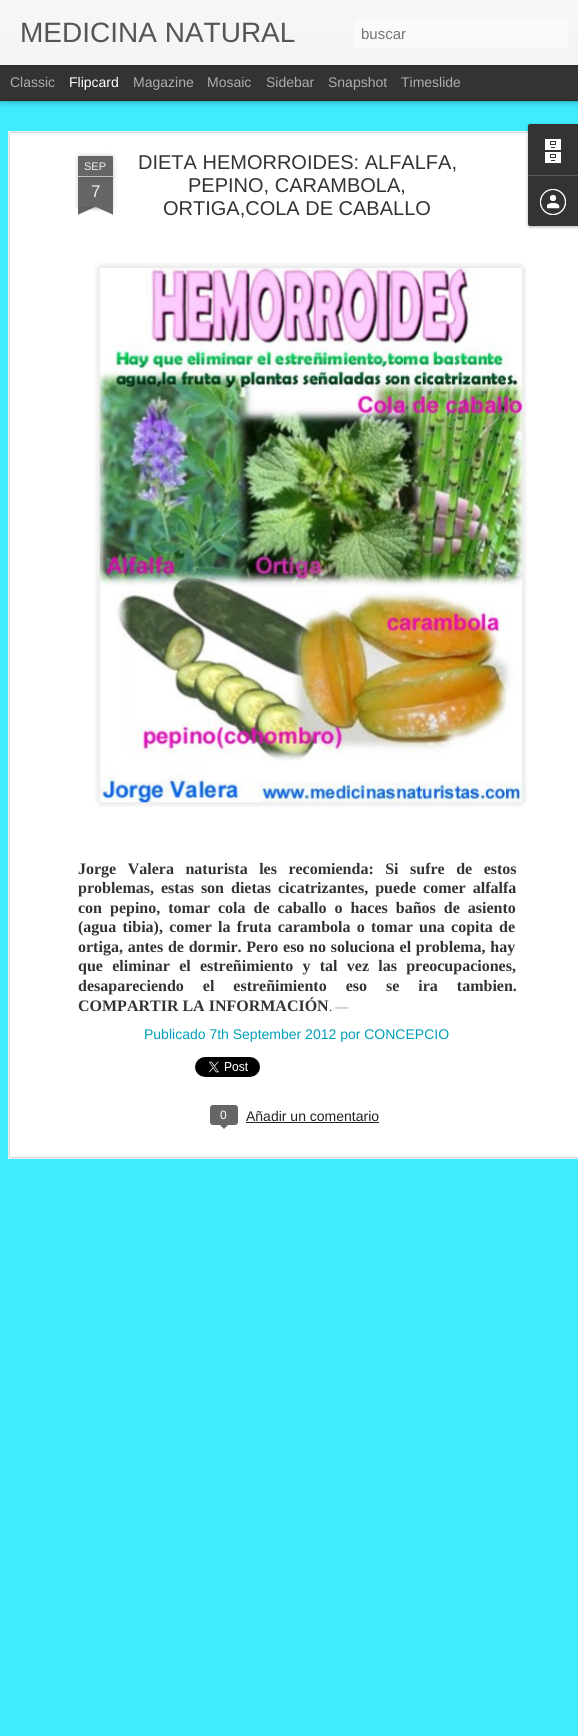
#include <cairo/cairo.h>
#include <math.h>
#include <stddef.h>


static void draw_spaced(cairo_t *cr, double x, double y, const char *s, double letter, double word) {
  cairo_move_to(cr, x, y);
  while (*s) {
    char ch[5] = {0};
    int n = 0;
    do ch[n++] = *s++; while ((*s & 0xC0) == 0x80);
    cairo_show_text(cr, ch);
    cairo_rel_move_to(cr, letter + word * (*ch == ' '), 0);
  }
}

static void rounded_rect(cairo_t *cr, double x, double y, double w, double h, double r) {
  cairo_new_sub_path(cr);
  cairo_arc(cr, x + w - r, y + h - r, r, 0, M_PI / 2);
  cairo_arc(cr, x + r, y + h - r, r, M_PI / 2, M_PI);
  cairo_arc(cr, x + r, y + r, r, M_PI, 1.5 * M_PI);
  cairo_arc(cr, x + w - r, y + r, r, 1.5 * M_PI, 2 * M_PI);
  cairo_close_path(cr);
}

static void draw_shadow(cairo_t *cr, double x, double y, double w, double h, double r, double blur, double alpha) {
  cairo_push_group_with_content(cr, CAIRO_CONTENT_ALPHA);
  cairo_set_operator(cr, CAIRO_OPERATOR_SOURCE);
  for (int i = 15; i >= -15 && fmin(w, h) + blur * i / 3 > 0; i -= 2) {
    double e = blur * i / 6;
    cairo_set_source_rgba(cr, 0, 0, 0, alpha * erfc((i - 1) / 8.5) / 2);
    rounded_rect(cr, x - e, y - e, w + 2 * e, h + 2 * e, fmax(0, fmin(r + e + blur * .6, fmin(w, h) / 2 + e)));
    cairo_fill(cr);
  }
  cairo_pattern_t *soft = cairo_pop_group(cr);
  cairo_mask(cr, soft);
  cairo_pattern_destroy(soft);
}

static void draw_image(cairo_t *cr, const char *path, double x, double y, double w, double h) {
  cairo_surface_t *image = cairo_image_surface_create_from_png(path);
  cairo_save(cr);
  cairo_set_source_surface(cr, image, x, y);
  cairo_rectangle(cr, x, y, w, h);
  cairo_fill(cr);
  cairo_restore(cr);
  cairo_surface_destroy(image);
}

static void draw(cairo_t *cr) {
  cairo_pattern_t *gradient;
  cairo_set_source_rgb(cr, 51 / 255.0, 51 / 255.0, 51 / 255.0);
  cairo_paint(cr);
  cairo_set_source_rgb(cr, 63 / 255.0, 235 / 255.0, 1);
  cairo_rectangle(cr, 0, 101, 578, 1635);
  cairo_fill(cr);
  cairo_set_source_rgb(cr, 0, 0, 0);
  draw_shadow(cr, 0, 65, 578, 35, 0, 4, 0.5);
  cairo_set_source_rgb(cr, 51 / 255.0, 51 / 255.0, 51 / 255.0);
  cairo_rectangle(cr, 0, 65, 578, 35);
  cairo_fill(cr);
  cairo_set_source_rgb(cr, 0, 0, 0);
  draw_shadow(cr, 0, 0, 578, 65, 0, 2.5, 0.3);
  gradient = cairo_pattern_create_linear(0, 0, 0, 65);
  cairo_pattern_add_color_stop_rgba(gradient, 0, 247 / 255.0, 247 / 255.0, 247 / 255.0, 1);
  cairo_pattern_add_color_stop_rgba(gradient, 1, 244 / 255.0, 244 / 255.0, 244 / 255.0, 1);
  cairo_set_source(cr, gradient);
  cairo_pattern_destroy(gradient);
  cairo_rectangle(cr, 0, 0, 578, 65);
  cairo_fill(cr);
  cairo_set_source_rgb(cr, 250 / 255.0, 250 / 255.0, 250 / 255.0);
  rounded_rect(cr, 354, 18, 214, 30, 3);
  cairo_fill(cr);
  cairo_set_source_rgb(cr, 1, 1, 1);
  cairo_rectangle(cr, 8, 131, 570, 1028);
  cairo_fill(cr);
  draw_image(cr, "images/1.png", 8, 131, 570, 1028);
  cairo_set_source_rgb(cr, 0, 0, 0);
  draw_shadow(cr, 78, 177, 35, 30, 0, 2.5, 0.2);
  cairo_set_source_rgb(cr, 102 / 255.0, 102 / 255.0, 102 / 255.0);
  cairo_rectangle(cr, 78, 177, 35, 30);
  cairo_fill(cr);
  cairo_set_source_rgb(cr, 0, 0, 0);
  draw_shadow(cr, 78, 156, 35, 21, 1, 2.5, 0.2);
  cairo_set_source_rgb(cr, 102 / 255.0, 102 / 255.0, 102 / 255.0);
  cairo_new_path(cr);
  cairo_move_to(cr, 79, 156);
  cairo_line_to(cr, 112, 156);
  cairo_curve_to(cr, 112.5, 156, 113, 156.5, 113, 157);
  cairo_line_to(cr, 113, 177);
  cairo_line_to(cr, 78, 177);
  cairo_line_to(cr, 78, 157);
  cairo_curve_to(cr, 78, 156.5, 78.5, 156, 79, 156);
  cairo_close_path(cr);
  cairo_fill(cr);
  cairo_set_source_rgb(cr, 194 / 255.0, 194 / 255.0, 194 / 255.0);
  cairo_rectangle(cr, 78, 176, 35, 1);
  cairo_fill(cr);
  cairo_save(cr);
  cairo_rectangle(cr, 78, 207, 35, 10);
  cairo_clip(cr);
  cairo_set_source_rgb(cr, 0, 0, 0);
  draw_shadow(cr, 69, 197, 50, 10, 0, 2.5, 0.2);
  cairo_restore(cr);
  cairo_save(cr);
  cairo_rectangle(cr, 78, 207, 35, 10);
  cairo_clip(cr);
  cairo_set_source_rgb(cr, 102 / 255.0, 102 / 255.0, 102 / 255.0);
  cairo_new_path(cr);
  cairo_move_to(cr, 69, 208);
  cairo_line_to(cr, 115, 187);
  cairo_line_to(cr, 119, 196);
  cairo_line_to(cr, 73, 217);
  cairo_close_path(cr);
  cairo_fill(cr);
  cairo_restore(cr);
  cairo_save(cr);
  cairo_rectangle(cr, 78, 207, 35, 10);
  cairo_clip(cr);
  cairo_set_source_rgb(cr, 0, 0, 0);
  draw_shadow(cr, 72, 197, 50, 10, 0, 2.5, 0.2);
  cairo_restore(cr);
  cairo_save(cr);
  cairo_rectangle(cr, 78, 207, 35, 10);
  cairo_clip(cr);
  cairo_set_source_rgb(cr, 102 / 255.0, 102 / 255.0, 102 / 255.0);
  cairo_new_path(cr);
  cairo_move_to(cr, 76, 187);
  cairo_line_to(cr, 122, 208);
  cairo_line_to(cr, 118, 217);
  cairo_line_to(cr, 72, 196);
  cairo_close_path(cr);
  cairo_fill(cr);
  cairo_restore(cr);
  draw_image(cr, "images/2.png", 95, 263, 432, 544);
  draw_image(cr, "images/3.png", 99, 268, 424, 535);
  draw_image(cr, "images/4.png", 195, 1057, 65, 20);
  cairo_set_source_rgb(cr, 102 / 255.0, 102 / 255.0, 102 / 255.0);
  rounded_rect(cr, 210.5, 1105.5, 27, 19, 2.5);
  cairo_fill_preserve(cr);
  cairo_set_line_width(cr, 1);
  cairo_stroke(cr);
  cairo_new_path(cr);
  cairo_move_to(cr, 219, 1124);
  cairo_line_to(cr, 229, 1124);
  cairo_line_to(cr, 224, 1129);
  cairo_close_path(cr);
  cairo_fill(cr);
  cairo_set_source_rgb(cr, 34 / 255.0, 34 / 255.0, 34 / 255.0);
  cairo_rectangle(cr, 246, 1122, 133, 1);
  cairo_fill(cr);
  cairo_set_source_rgb(cr, 0, 0, 0);
  draw_shadow(cr, 528, 125, 50, 102, 2, 1.5, 0.3);
  cairo_set_source_rgb(cr, 51 / 255.0, 51 / 255.0, 51 / 255.0);
  cairo_new_path(cr);
  cairo_move_to(cr, 530, 124);
  cairo_line_to(cr, 578, 124);
  cairo_line_to(cr, 578, 175);
  cairo_line_to(cr, 528, 175);
  cairo_line_to(cr, 528, 126);
  cairo_curve_to(cr, 528, 125, 529, 124, 530, 124);
  cairo_close_path(cr);
  cairo_fill(cr);
  draw_image(cr, "images/5.png", 545, 139, 16, 24);
  cairo_new_path(cr);
  cairo_move_to(cr, 528, 175);
  cairo_line_to(cr, 578, 175);
  cairo_line_to(cr, 578, 226);
  cairo_line_to(cr, 530, 226);
  cairo_curve_to(cr, 529, 226, 528, 225, 528, 224);
  cairo_close_path(cr);
  cairo_fill(cr);
  cairo_set_source_rgb(cr, 88 / 255.0, 88 / 255.0, 88 / 255.0);
  cairo_rectangle(cr, 528, 175, 50, 1);
  cairo_fill(cr);
  draw_image(cr, "images/6.png", 540, 189, 26, 26);
  cairo_select_font_face(cr, "Liberation Sans", CAIRO_FONT_SLANT_NORMAL, CAIRO_FONT_WEIGHT_NORMAL);
  cairo_set_font_size(cr, 28);
  cairo_set_source_rgb(cr, 85 / 255.0, 85 / 255.0, 85 / 255.0);
  cairo_move_to(cr, 20, 42);
  cairo_show_text(cr, "MEDICINA NATURAL");
  cairo_set_font_size(cr, 15);
  cairo_set_source_rgb(cr, 117 / 255.0, 117 / 255.0, 117 / 255.0);
  cairo_move_to(cr, 361, 39);
  cairo_show_text(cr, "buscar");
  cairo_set_font_size(cr, 14);
  cairo_set_source_rgb(cr, 173 / 255.0, 173 / 255.0, 173 / 255.0);
  cairo_move_to(cr, 10, 87);
  cairo_show_text(cr, "Classic");
  cairo_set_source_rgb(cr, 1, 1, 1);
  cairo_move_to(cr, 69, 87);
  cairo_show_text(cr, "Flipcard");
  cairo_set_source_rgb(cr, 173 / 255.0, 173 / 255.0, 173 / 255.0);
  cairo_move_to(cr, 133, 87);
  cairo_show_text(cr, "Magazine");
  cairo_move_to(cr, 207, 87);
  cairo_show_text(cr, "Mosaic");
  cairo_move_to(cr, 266, 87);
  cairo_show_text(cr, "Sidebar");
  cairo_move_to(cr, 328, 87);
  cairo_show_text(cr, "Snapshot");
  cairo_move_to(cr, 401, 87);
  cairo_show_text(cr, "Timeslide");
  cairo_set_font_size(cr, 11);
  cairo_set_source_rgb(cr, 238 / 255.0, 238 / 255.0, 238 / 255.0);
  cairo_move_to(cr, 84, 170);
  cairo_show_text(cr, "SEP");
  cairo_set_font_size(cr, 17);
  cairo_move_to(cr, 91, 197);
  cairo_show_text(cr, "7");
  cairo_set_font_size(cr, 20);
  cairo_set_source_rgb(cr, 51 / 255.0, 51 / 255.0, 51 / 255.0);
  cairo_move_to(cr, 138, 169);
  cairo_show_text(cr, "DIETA HEMORROIDES: ALFALFA,");
  cairo_move_to(cr, 188, 192);
  cairo_show_text(cr, "PEPINO, CARAMBOLA,");
  cairo_move_to(cr, 163, 215);
  cairo_show_text(cr, "ORTIGA,COLA DE CABALLO");
  cairo_select_font_face(cr, "Liberation Serif", CAIRO_FONT_SLANT_NORMAL, CAIRO_FONT_WEIGHT_BOLD);
  cairo_set_font_size(cr, 16);
  draw_spaced(cr, 78, 874, "Jorge Valera naturista les recomienda: Si sufre de estos", 0, 7.5);
  draw_spaced(cr, 78, 893, "problemas, estas son dietas cicatrizantes, puede comer alfalfa", 0, 3);
  draw_spaced(cr, 78, 913, "con pepino, tomar cola de caballo o haces baños de asiento", 0, 4);
  draw_spaced(cr, 78, 932, "(agua tibia), comer la fruta carambola o tomar una copita de", 0, 2.25);
  draw_spaced(cr, 78, 952, "ortiga, antes de dormir. Pero eso no soluciona el problema, hay", 0, 0.75);
  draw_spaced(cr, 78, 971, "que eliminar el estreñimiento y tal vez las preocupaciones,", 0, 5.25);
  draw_spaced(cr, 78, 991, "desapareciendo el estreñimiento eso se ira tambien.", 0, 15);
  cairo_move_to(cr, 78, 1011);
  cairo_show_text(cr, "COMPARTIR LA INFORMACIÓN");
  cairo_select_font_face(cr, "Liberation Serif", CAIRO_FONT_SLANT_NORMAL, CAIRO_FONT_WEIGHT_NORMAL);
  cairo_set_font_size(cr, 13);
  cairo_set_source_rgb(cr, 128 / 255.0, 128 / 255.0, 128 / 255.0);
  cairo_move_to(cr, 335, 1011);
  cairo_show_text(cr, "—");
  cairo_set_source_rgb(cr, 51 / 255.0, 51 / 255.0, 51 / 255.0);
  cairo_move_to(cr, 329, 1011);
  cairo_show_text(cr, ".");
  cairo_select_font_face(cr, "Liberation Sans", CAIRO_FONT_SLANT_NORMAL, CAIRO_FONT_WEIGHT_NORMAL);
  cairo_set_font_size(cr, 14);
  cairo_set_source_rgb(cr, 0, 158 / 255.0, 184 / 255.0);
  cairo_move_to(cr, 144, 1039);
  cairo_show_text(cr, "Publicado 7th September 2012 por CONCEPCIO");
  cairo_set_font_size(cr, 12);
  cairo_set_source_rgb(cr, 1, 1, 1);
  cairo_move_to(cr, 220, 1119);
  cairo_show_text(cr, "0");
  cairo_set_font_size(cr, 14);
  cairo_set_source_rgb(cr, 34 / 255.0, 34 / 255.0, 34 / 255.0);
  cairo_move_to(cr, 246, 1121);
  cairo_show_text(cr, "Añadir un comentario");
}

int main(void) {
  cairo_surface_t *surface = cairo_image_surface_create(CAIRO_FORMAT_RGB24, 578, 1736);
  cairo_t *cr = cairo_create(surface);
  cairo_font_options_t *options = cairo_font_options_create();
  cairo_font_options_set_hint_metrics(options, CAIRO_HINT_METRICS_OFF);
  cairo_font_options_set_hint_style(options, CAIRO_HINT_STYLE_NONE);
  cairo_set_font_options(cr, options);
  cairo_set_miter_limit(cr, 4);
  draw(cr);
  cairo_surface_write_to_png(surface, "out.png");
  cairo_font_options_destroy(options);
  cairo_destroy(cr);
  cairo_surface_destroy(surface);
  return 0;
}
